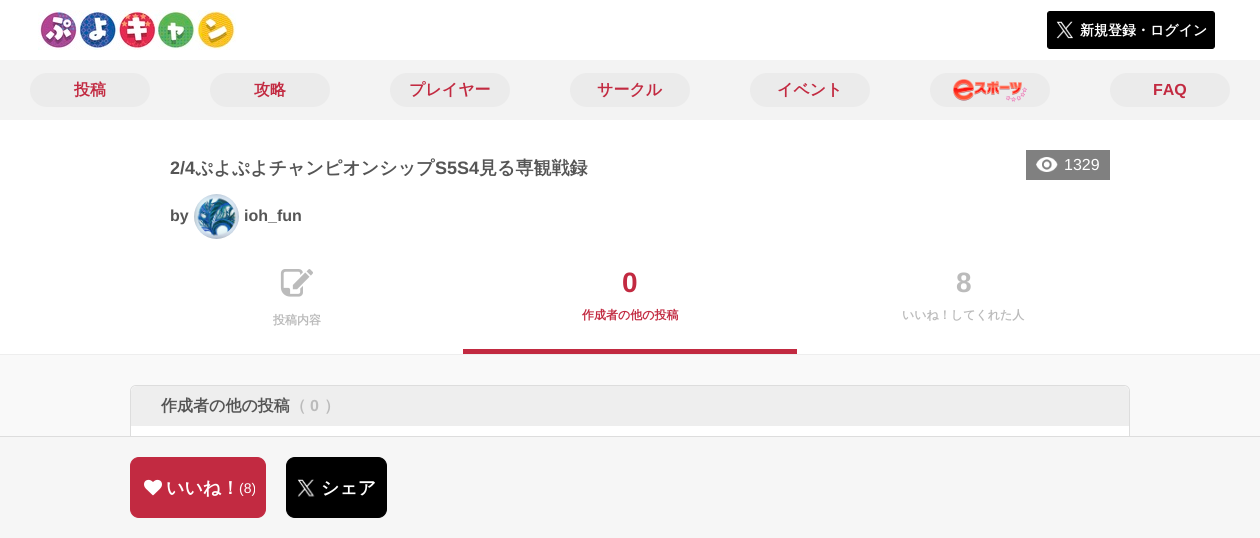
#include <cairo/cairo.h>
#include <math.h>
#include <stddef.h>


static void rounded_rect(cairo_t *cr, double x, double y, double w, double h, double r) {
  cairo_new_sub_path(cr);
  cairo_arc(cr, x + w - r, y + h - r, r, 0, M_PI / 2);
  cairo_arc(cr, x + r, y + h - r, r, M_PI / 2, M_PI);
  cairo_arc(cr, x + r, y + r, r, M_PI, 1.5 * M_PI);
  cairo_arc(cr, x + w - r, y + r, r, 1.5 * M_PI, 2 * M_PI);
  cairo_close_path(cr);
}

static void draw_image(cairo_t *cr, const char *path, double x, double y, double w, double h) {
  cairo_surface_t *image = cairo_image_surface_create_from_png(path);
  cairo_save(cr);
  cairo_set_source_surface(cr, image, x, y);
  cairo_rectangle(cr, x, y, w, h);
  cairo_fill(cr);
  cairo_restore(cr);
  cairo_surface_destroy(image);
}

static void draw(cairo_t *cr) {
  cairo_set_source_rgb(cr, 249 / 255.0, 249 / 255.0, 249 / 255.0);
  cairo_paint(cr);
  cairo_set_source_rgb(cr, 1, 1, 1);
  cairo_rectangle(cr, 0, 0, 1260, 60);
  cairo_fill(cr);
  draw_image(cr, "images/1.png", 38, 10, 198, 40);
  cairo_set_source_rgb(cr, 0, 0, 0);
  rounded_rect(cr, 1047.5, 11.5, 167, 37, 2.5);
  cairo_fill_preserve(cr);
  cairo_set_line_width(cr, 1);
  cairo_stroke(cr);
  draw_image(cr, "images/2.png", 1056, 21, 17, 18);
  cairo_set_source_rgb(cr, 243 / 255.0, 243 / 255.0, 243 / 255.0);
  cairo_rectangle(cr, 0, 60, 1260, 60);
  cairo_fill(cr);
  cairo_set_source_rgb(cr, 235 / 255.0, 235 / 255.0, 235 / 255.0);
  rounded_rect(cr, 30, 73, 120, 34, 17);
  cairo_fill(cr);
  rounded_rect(cr, 210, 73, 120, 34, 17);
  cairo_fill(cr);
  rounded_rect(cr, 390, 73, 120, 34, 17);
  cairo_fill(cr);
  rounded_rect(cr, 570, 73, 120, 34, 17);
  cairo_fill(cr);
  rounded_rect(cr, 750, 73, 120, 34, 17);
  cairo_fill(cr);
  rounded_rect(cr, 930, 73, 120, 34, 17);
  cairo_fill(cr);
  draw_image(cr, "images/3.png", 953, 79, 74, 23);
  rounded_rect(cr, 1110, 73, 120, 34, 17);
  cairo_fill(cr);
  cairo_set_source_rgb(cr, 1, 1, 1);
  cairo_rectangle(cr, 0, 120, 1260, 234);
  cairo_fill(cr);
  cairo_set_source_rgb(cr, 128 / 255.0, 128 / 255.0, 128 / 255.0);
  cairo_rectangle(cr, 1026, 150, 84, 30);
  cairo_fill(cr);
  draw_image(cr, "images/4.png", 1036, 157, 22, 15);
  draw_image(cr, "images/5.png", 194, 194, 45, 45);
  cairo_set_source_rgb(cr, 238 / 255.0, 238 / 255.0, 238 / 255.0);
  cairo_rectangle(cr, 0, 354, 1260, 1);
  cairo_fill(cr);
  draw_image(cr, "images/6.png", 280, 269, 33, 28);
  cairo_set_source_rgb(cr, 194 / 255.0, 42 / 255.0, 65 / 255.0);
  cairo_rectangle(cr, 463, 349, 334, 5);
  cairo_fill(cr);
  cairo_set_source_rgb(cr, 1, 1, 1);
  rounded_rect(cr, 130.5, 385.5, 999, 102, 5.5);
  cairo_fill_preserve(cr);
  cairo_set_source_rgb(cr, 221 / 255.0, 221 / 255.0, 221 / 255.0);
  cairo_stroke(cr);
  cairo_set_source_rgb(cr, 238 / 255.0, 238 / 255.0, 238 / 255.0);
  cairo_new_path(cr);
  cairo_move_to(cr, 137, 386);
  cairo_line_to(cr, 1123, 386);
  cairo_curve_to(cr, 1126.5, 386, 1129, 388.5, 1129, 392);
  cairo_line_to(cr, 1129, 426);
  cairo_line_to(cr, 131, 426);
  cairo_line_to(cr, 131, 392);
  cairo_curve_to(cr, 131, 388.5, 133.5, 386, 137, 386);
  cairo_close_path(cr);
  cairo_fill(cr);
  cairo_set_source_rgb(cr, 246 / 255.0, 246 / 255.0, 246 / 255.0);
  cairo_rectangle(cr, 0, 437, 1260, 101);
  cairo_fill(cr);
  cairo_set_source_rgb(cr, 221 / 255.0, 221 / 255.0, 221 / 255.0);
  cairo_rectangle(cr, 0, 436, 1260, 1);
  cairo_fill(cr);
  cairo_set_source_rgb(cr, 194 / 255.0, 42 / 255.0, 65 / 255.0);
  rounded_rect(cr, 130.5, 457.5, 135, 60, 8.5);
  cairo_fill_preserve(cr);
  cairo_stroke(cr);
  draw_image(cr, "images/7.png", 144, 479, 18, 17);
  cairo_set_source_rgb(cr, 0, 0, 0);
  rounded_rect(cr, 286.5, 457.5, 100, 60, 8.5);
  cairo_fill_preserve(cr);
  cairo_stroke(cr);
  draw_image(cr, "images/8.png", 297, 479, 18, 18);
  cairo_select_font_face(cr, "WenQuanYi Zen Hei", CAIRO_FONT_SLANT_NORMAL, CAIRO_FONT_WEIGHT_BOLD);
  cairo_set_font_size(cr, 14);
  cairo_set_source_rgb(cr, 1, 1, 1);
  cairo_move_to(cr, 1080, 35);
  cairo_show_text(cr, "新規登録・ログイン");
  cairo_set_font_size(cr, 16);
  cairo_set_source_rgb(cr, 194 / 255.0, 42 / 255.0, 65 / 255.0);
  cairo_move_to(cr, 74, 95);
  cairo_show_text(cr, "投稿");
  cairo_move_to(cr, 254, 95);
  cairo_show_text(cr, "攻略");
  cairo_move_to(cr, 409, 95);
  cairo_show_text(cr, "プレイヤー");
  cairo_move_to(cr, 597, 95);
  cairo_show_text(cr, "サークル");
  cairo_move_to(cr, 777, 95);
  cairo_show_text(cr, "イベント");
  cairo_select_font_face(cr, "Liberation Sans", CAIRO_FONT_SLANT_NORMAL, CAIRO_FONT_WEIGHT_BOLD);
  cairo_move_to(cr, 1153, 95);
  cairo_show_text(cr, "FAQ");
  cairo_set_font_size(cr, 18);
  cairo_set_source_rgb(cr, 85 / 255.0, 85 / 255.0, 85 / 255.0);
  cairo_move_to(cr, 170, 174);
  cairo_show_text(cr, "2/4");
  cairo_select_font_face(cr, "WenQuanYi Zen Hei", CAIRO_FONT_SLANT_NORMAL, CAIRO_FONT_WEIGHT_BOLD);
  cairo_move_to(cr, 195, 174);
  cairo_show_text(cr, "ぷよぷよチャンピオンシップ");
  cairo_select_font_face(cr, "Liberation Sans", CAIRO_FONT_SLANT_NORMAL, CAIRO_FONT_WEIGHT_BOLD);
  cairo_move_to(cr, 435, 174);
  cairo_show_text(cr, "S5S4");
  cairo_select_font_face(cr, "WenQuanYi Zen Hei", CAIRO_FONT_SLANT_NORMAL, CAIRO_FONT_WEIGHT_BOLD);
  cairo_move_to(cr, 479, 174);
  cairo_show_text(cr, "見る専観戦録");
  cairo_select_font_face(cr, "Liberation Sans", CAIRO_FONT_SLANT_NORMAL, CAIRO_FONT_WEIGHT_NORMAL);
  cairo_set_font_size(cr, 16);
  cairo_set_source_rgb(cr, 1, 1, 1);
  cairo_move_to(cr, 1064, 170);
  cairo_show_text(cr, "1329");
  cairo_select_font_face(cr, "Liberation Sans", CAIRO_FONT_SLANT_NORMAL, CAIRO_FONT_WEIGHT_BOLD);
  cairo_set_source_rgb(cr, 85 / 255.0, 85 / 255.0, 85 / 255.0);
  cairo_move_to(cr, 170, 221);
  cairo_show_text(cr, "by");
  cairo_move_to(cr, 244, 221);
  cairo_show_text(cr, "ioh_fun");
  cairo_select_font_face(cr, "WenQuanYi Zen Hei", CAIRO_FONT_SLANT_NORMAL, CAIRO_FONT_WEIGHT_BOLD);
  cairo_set_font_size(cr, 12);
  cairo_set_source_rgb(cr, 187 / 255.0, 187 / 255.0, 187 / 255.0);
  cairo_move_to(cr, 273, 324);
  cairo_show_text(cr, "投稿内容");
  cairo_select_font_face(cr, "Liberation Sans", CAIRO_FONT_SLANT_NORMAL, CAIRO_FONT_WEIGHT_BOLD);
  cairo_set_font_size(cr, 28);
  cairo_set_source_rgb(cr, 194 / 255.0, 42 / 255.0, 65 / 255.0);
  cairo_move_to(cr, 622, 292);
  cairo_show_text(cr, "0");
  cairo_select_font_face(cr, "WenQuanYi Zen Hei", CAIRO_FONT_SLANT_NORMAL, CAIRO_FONT_WEIGHT_BOLD);
  cairo_set_font_size(cr, 12);
  cairo_move_to(cr, 582, 319);
  cairo_show_text(cr, "作成者の他の投稿");
  cairo_select_font_face(cr, "Liberation Sans", CAIRO_FONT_SLANT_NORMAL, CAIRO_FONT_WEIGHT_BOLD);
  cairo_set_font_size(cr, 28);
  cairo_set_source_rgb(cr, 187 / 255.0, 187 / 255.0, 187 / 255.0);
  cairo_move_to(cr, 956, 292);
  cairo_show_text(cr, "8");
  cairo_select_font_face(cr, "WenQuanYi Zen Hei", CAIRO_FONT_SLANT_NORMAL, CAIRO_FONT_WEIGHT_BOLD);
  cairo_set_font_size(cr, 12);
  cairo_move_to(cr, 902, 319);
  cairo_show_text(cr, "いいね！してくれた人");
  cairo_set_font_size(cr, 16);
  cairo_set_source_rgb(cr, 85 / 255.0, 85 / 255.0, 85 / 255.0);
  cairo_move_to(cr, 161, 411);
  cairo_show_text(cr, "作成者の他の投稿");
  cairo_set_source_rgb(cr, 187 / 255.0, 187 / 255.0, 187 / 255.0);
  cairo_move_to(cr, 290, 411);
  cairo_show_text(cr, "（");
  cairo_select_font_face(cr, "Liberation Sans", CAIRO_FONT_SLANT_NORMAL, CAIRO_FONT_WEIGHT_BOLD);
  cairo_move_to(cr, 310, 411);
  cairo_show_text(cr, "0");
  cairo_select_font_face(cr, "WenQuanYi Zen Hei", CAIRO_FONT_SLANT_NORMAL, CAIRO_FONT_WEIGHT_BOLD);
  cairo_move_to(cr, 324, 411);
  cairo_show_text(cr, "）");
  cairo_set_font_size(cr, 18);
  cairo_set_source_rgb(cr, 1, 1, 1);
  cairo_move_to(cr, 166, 494);
  cairo_show_text(cr, "いいね！");
  cairo_select_font_face(cr, "Liberation Sans", CAIRO_FONT_SLANT_NORMAL, CAIRO_FONT_WEIGHT_NORMAL);
  cairo_set_font_size(cr, 14);
  cairo_move_to(cr, 239, 493);
  cairo_show_text(cr, "(8)");
  cairo_select_font_face(cr, "WenQuanYi Zen Hei", CAIRO_FONT_SLANT_NORMAL, CAIRO_FONT_WEIGHT_BOLD);
  cairo_set_font_size(cr, 18);
  cairo_move_to(cr, 321, 494);
  cairo_show_text(cr, "シェア");
}

int main(void) {
  cairo_surface_t *surface = cairo_image_surface_create(CAIRO_FORMAT_RGB24, 1260, 538);
  cairo_t *cr = cairo_create(surface);
  cairo_font_options_t *options = cairo_font_options_create();
  cairo_font_options_set_hint_metrics(options, CAIRO_HINT_METRICS_OFF);
  cairo_font_options_set_hint_style(options, CAIRO_HINT_STYLE_NONE);
  cairo_set_font_options(cr, options);
  cairo_set_miter_limit(cr, 4);
  draw(cr);
  cairo_surface_write_to_png(surface, "out.png");
  cairo_font_options_destroy(options);
  cairo_destroy(cr);
  cairo_surface_destroy(surface);
  return 0;
}
